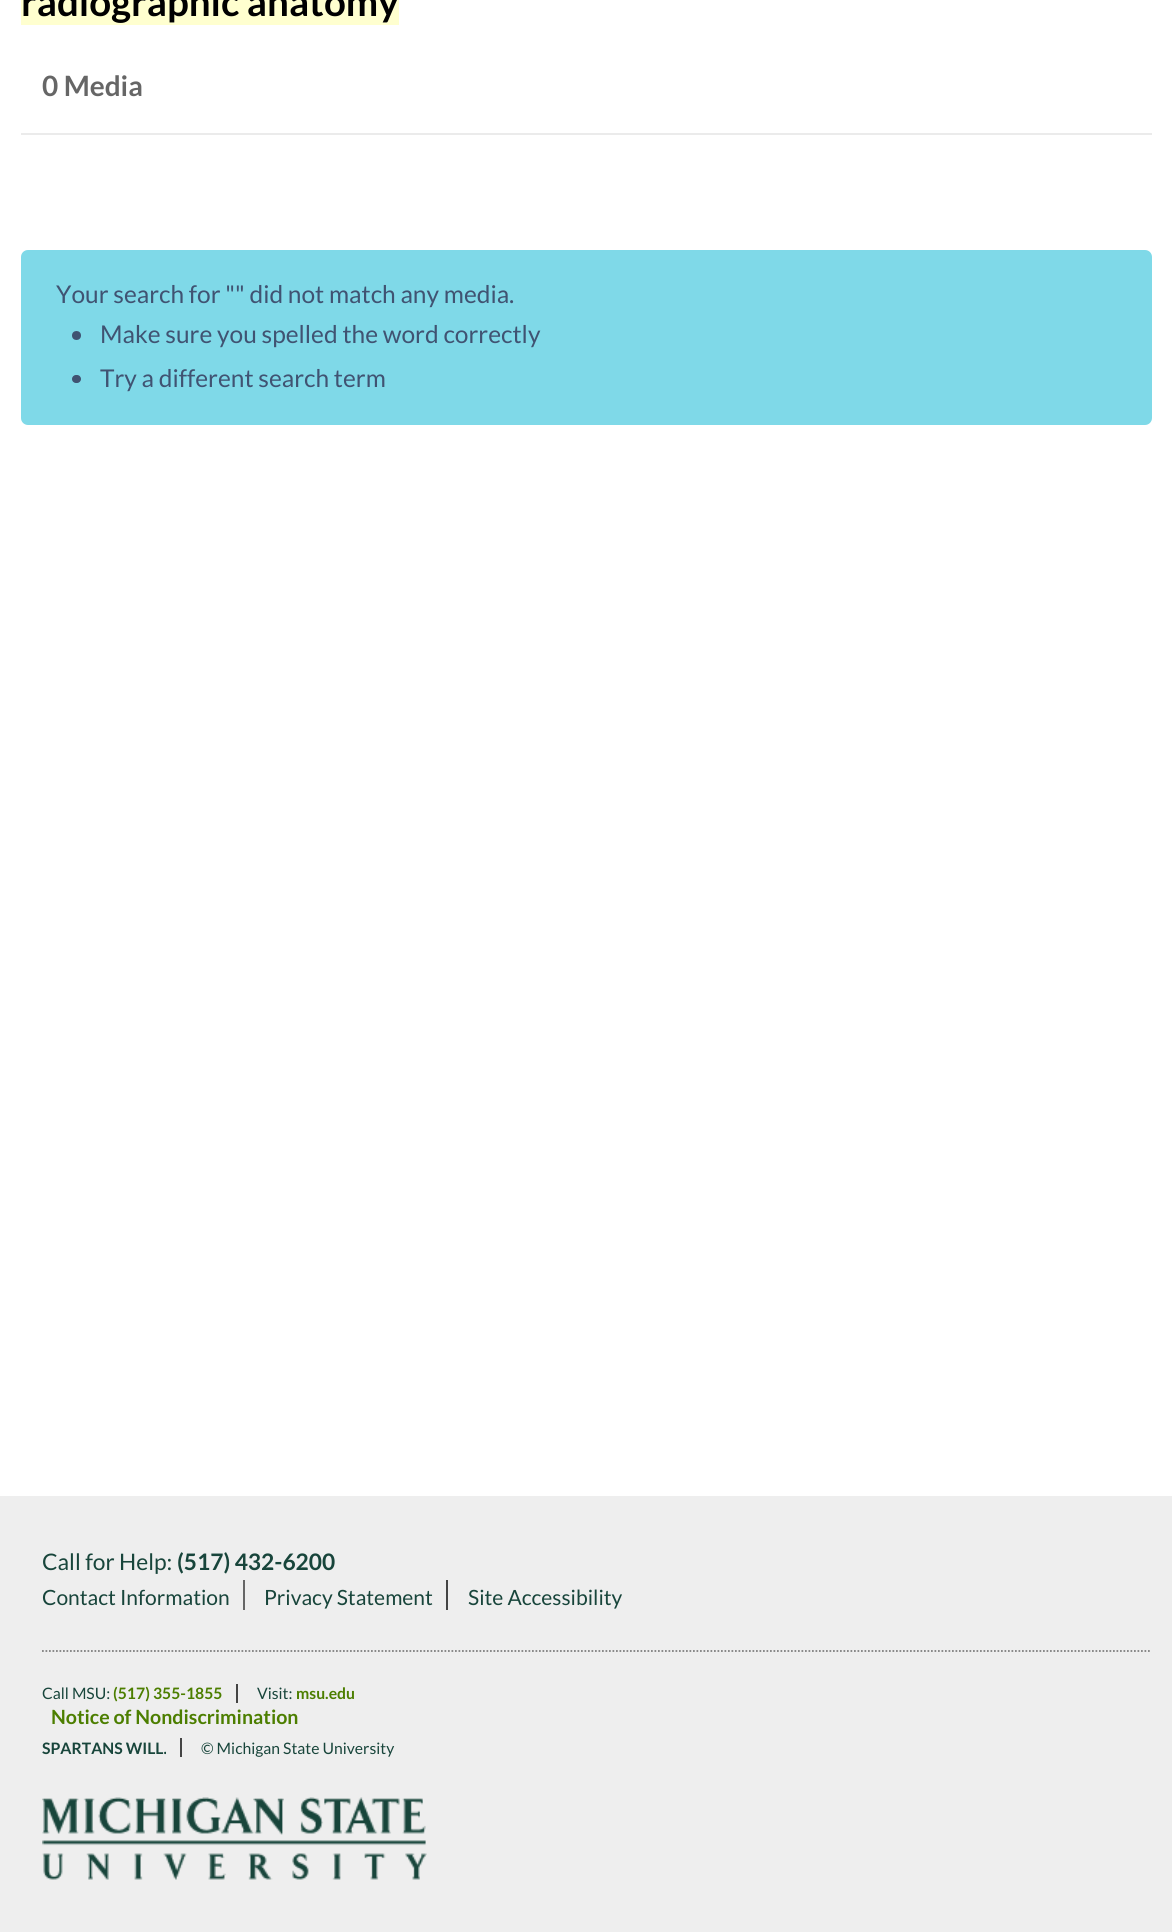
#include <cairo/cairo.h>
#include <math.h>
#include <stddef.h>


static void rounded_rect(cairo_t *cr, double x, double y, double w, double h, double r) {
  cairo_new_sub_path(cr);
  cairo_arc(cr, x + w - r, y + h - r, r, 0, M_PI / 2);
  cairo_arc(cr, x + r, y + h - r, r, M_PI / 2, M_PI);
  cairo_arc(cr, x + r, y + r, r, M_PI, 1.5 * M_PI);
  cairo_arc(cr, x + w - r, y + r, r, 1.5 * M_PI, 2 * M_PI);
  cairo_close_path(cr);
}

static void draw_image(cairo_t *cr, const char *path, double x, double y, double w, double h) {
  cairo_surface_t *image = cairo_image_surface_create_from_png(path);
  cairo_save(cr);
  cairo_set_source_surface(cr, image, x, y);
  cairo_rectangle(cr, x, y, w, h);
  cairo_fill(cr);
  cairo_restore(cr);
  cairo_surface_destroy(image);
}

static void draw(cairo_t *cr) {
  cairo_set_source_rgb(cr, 1, 1, 1);
  cairo_paint(cr);
  cairo_set_source_rgb(cr, 1, 1, 207 / 255.0);
  cairo_rectangle(cr, 21, 0, 378, 25);
  cairo_fill(cr);
  cairo_set_source_rgb(cr, 235 / 255.0, 235 / 255.0, 235 / 255.0);
  cairo_rectangle(cr, 21, 133, 1131, 2);
  cairo_fill(cr);
  cairo_set_source_rgb(cr, 127 / 255.0, 217 / 255.0, 232 / 255.0);
  rounded_rect(cr, 21, 250, 1131, 175, 7);
  cairo_fill(cr);
  cairo_set_source_rgb(cr, 64 / 255.0, 83 / 255.0, 114 / 255.0);
  cairo_arc(cr, 76.5, 335.5, 4.5, 0, 2 * M_PI);
  cairo_fill(cr);
  rounded_rect(cr, 72, 375, 9, 8, 4);
  cairo_fill(cr);
  cairo_set_source_rgb(cr, 238 / 255.0, 238 / 255.0, 238 / 255.0);
  cairo_rectangle(cr, 0, 1496, 1172, 436);
  cairo_fill(cr);
  cairo_new_path(cr);
  cairo_move_to(cr, 42, 1651);
  cairo_line_to(cr, 1151.5, 1651);
  cairo_set_source_rgb(cr, 128 / 255.0, 128 / 255.0, 128 / 255.0);
  cairo_set_line_width(cr, 1.8);
  cairo_set_dash(cr, (double[]){1.75, 1.75}, 2, 0);
  cairo_stroke(cr);
  cairo_set_source_rgb(cr, 102 / 255.0, 102 / 255.0, 102 / 255.0);
  cairo_rectangle(cr, 243, 1580, 2, 30);
  cairo_fill(cr);
  cairo_set_source_rgb(cr, 68 / 255.0, 68 / 255.0, 68 / 255.0);
  cairo_rectangle(cr, 446, 1580, 2, 30);
  cairo_fill(cr);
  cairo_rectangle(cr, 236, 1684, 2, 19);
  cairo_fill(cr);
  cairo_rectangle(cr, 180, 1738, 2, 19);
  cairo_fill(cr);
  draw_image(cr, "images/1.png", 42, 1797, 385, 83);
  cairo_select_font_face(cr, "Lato", CAIRO_FONT_SLANT_NORMAL, CAIRO_FONT_WEIGHT_BOLD);
  cairo_set_font_size(cr, 38.5);
  cairo_set_source_rgb(cr, 0, 0, 0);
  cairo_move_to(cr, 21, 16);
  cairo_show_text(cr, "radiographic anatomy");
  cairo_set_font_size(cr, 28);
  cairo_set_source_rgb(cr, 102 / 255.0, 102 / 255.0, 102 / 255.0);
  cairo_move_to(cr, 42, 96);
  cairo_show_text(cr, "0 Media");
  cairo_select_font_face(cr, "Lato", CAIRO_FONT_SLANT_NORMAL, CAIRO_FONT_WEIGHT_NORMAL);
  cairo_set_font_size(cr, 24.5);
  cairo_set_source_rgb(cr, 64 / 255.0, 83 / 255.0, 114 / 255.0);
  cairo_move_to(cr, 56, 303);
  cairo_show_text(cr, "Your search for \"\" did not match any media.");
  cairo_move_to(cr, 100, 343);
  cairo_show_text(cr, "Make sure you spelled the word correctly");
  cairo_move_to(cr, 100, 387);
  cairo_show_text(cr, "Try a different search term");
  cairo_set_font_size(cr, 22.75);
  cairo_set_source_rgb(cr, 24 / 255.0, 69 / 255.0, 59 / 255.0);
  cairo_move_to(cr, 42, 1570);
  cairo_show_text(cr, "Call for Help:");
  cairo_select_font_face(cr, "Lato", CAIRO_FONT_SLANT_NORMAL, CAIRO_FONT_WEIGHT_BOLD);
  cairo_move_to(cr, 177, 1570);
  cairo_show_text(cr, "(517) 432-6200");
  cairo_select_font_face(cr, "Lato", CAIRO_FONT_SLANT_NORMAL, CAIRO_FONT_WEIGHT_NORMAL);
  cairo_set_font_size(cr, 21);
  cairo_move_to(cr, 42, 1605);
  cairo_show_text(cr, "Contact Information");
  cairo_move_to(cr, 264, 1605);
  cairo_show_text(cr, "Privacy Statement");
  cairo_move_to(cr, 468, 1605);
  cairo_show_text(cr, "Site Accessibility");
  cairo_set_font_size(cr, 15.75);
  cairo_move_to(cr, 42, 1699);
  cairo_show_text(cr, "Call MSU:");
  cairo_select_font_face(cr, "Lato", CAIRO_FONT_SLANT_NORMAL, CAIRO_FONT_WEIGHT_BOLD);
  cairo_set_source_rgb(cr, 76 / 255.0, 126 / 255.0, 0);
  cairo_move_to(cr, 113, 1699);
  cairo_show_text(cr, "(517) 355-1855");
  cairo_select_font_face(cr, "Lato", CAIRO_FONT_SLANT_NORMAL, CAIRO_FONT_WEIGHT_NORMAL);
  cairo_set_source_rgb(cr, 24 / 255.0, 69 / 255.0, 59 / 255.0);
  cairo_move_to(cr, 257, 1699);
  cairo_show_text(cr, "Visit:");
  cairo_select_font_face(cr, "Lato", CAIRO_FONT_SLANT_NORMAL, CAIRO_FONT_WEIGHT_BOLD);
  cairo_set_source_rgb(cr, 76 / 255.0, 126 / 255.0, 0);
  cairo_move_to(cr, 296, 1699);
  cairo_show_text(cr, "msu.edu");
  cairo_set_font_size(cr, 19.6);
  cairo_move_to(cr, 51, 1724);
  cairo_show_text(cr, "Notice of Nondiscrimination");
  cairo_set_font_size(cr, 15.75);
  cairo_set_source_rgb(cr, 24 / 255.0, 69 / 255.0, 59 / 255.0);
  cairo_move_to(cr, 42, 1754);
  cairo_show_text(cr, "SPARTANS WILL.");
  cairo_select_font_face(cr, "Lato", CAIRO_FONT_SLANT_NORMAL, CAIRO_FONT_WEIGHT_NORMAL);
  cairo_move_to(cr, 201, 1754);
  cairo_show_text(cr, "© Michigan State University");
}

int main(void) {
  cairo_surface_t *surface = cairo_image_surface_create(CAIRO_FORMAT_RGB24, 1172, 1932);
  cairo_t *cr = cairo_create(surface);
  cairo_font_options_t *options = cairo_font_options_create();
  cairo_font_options_set_hint_metrics(options, CAIRO_HINT_METRICS_OFF);
  cairo_font_options_set_hint_style(options, CAIRO_HINT_STYLE_NONE);
  cairo_set_font_options(cr, options);
  cairo_set_miter_limit(cr, 4);
  draw(cr);
  cairo_surface_write_to_png(surface, "out.png");
  cairo_font_options_destroy(options);
  cairo_destroy(cr);
  cairo_surface_destroy(surface);
  return 0;
}
